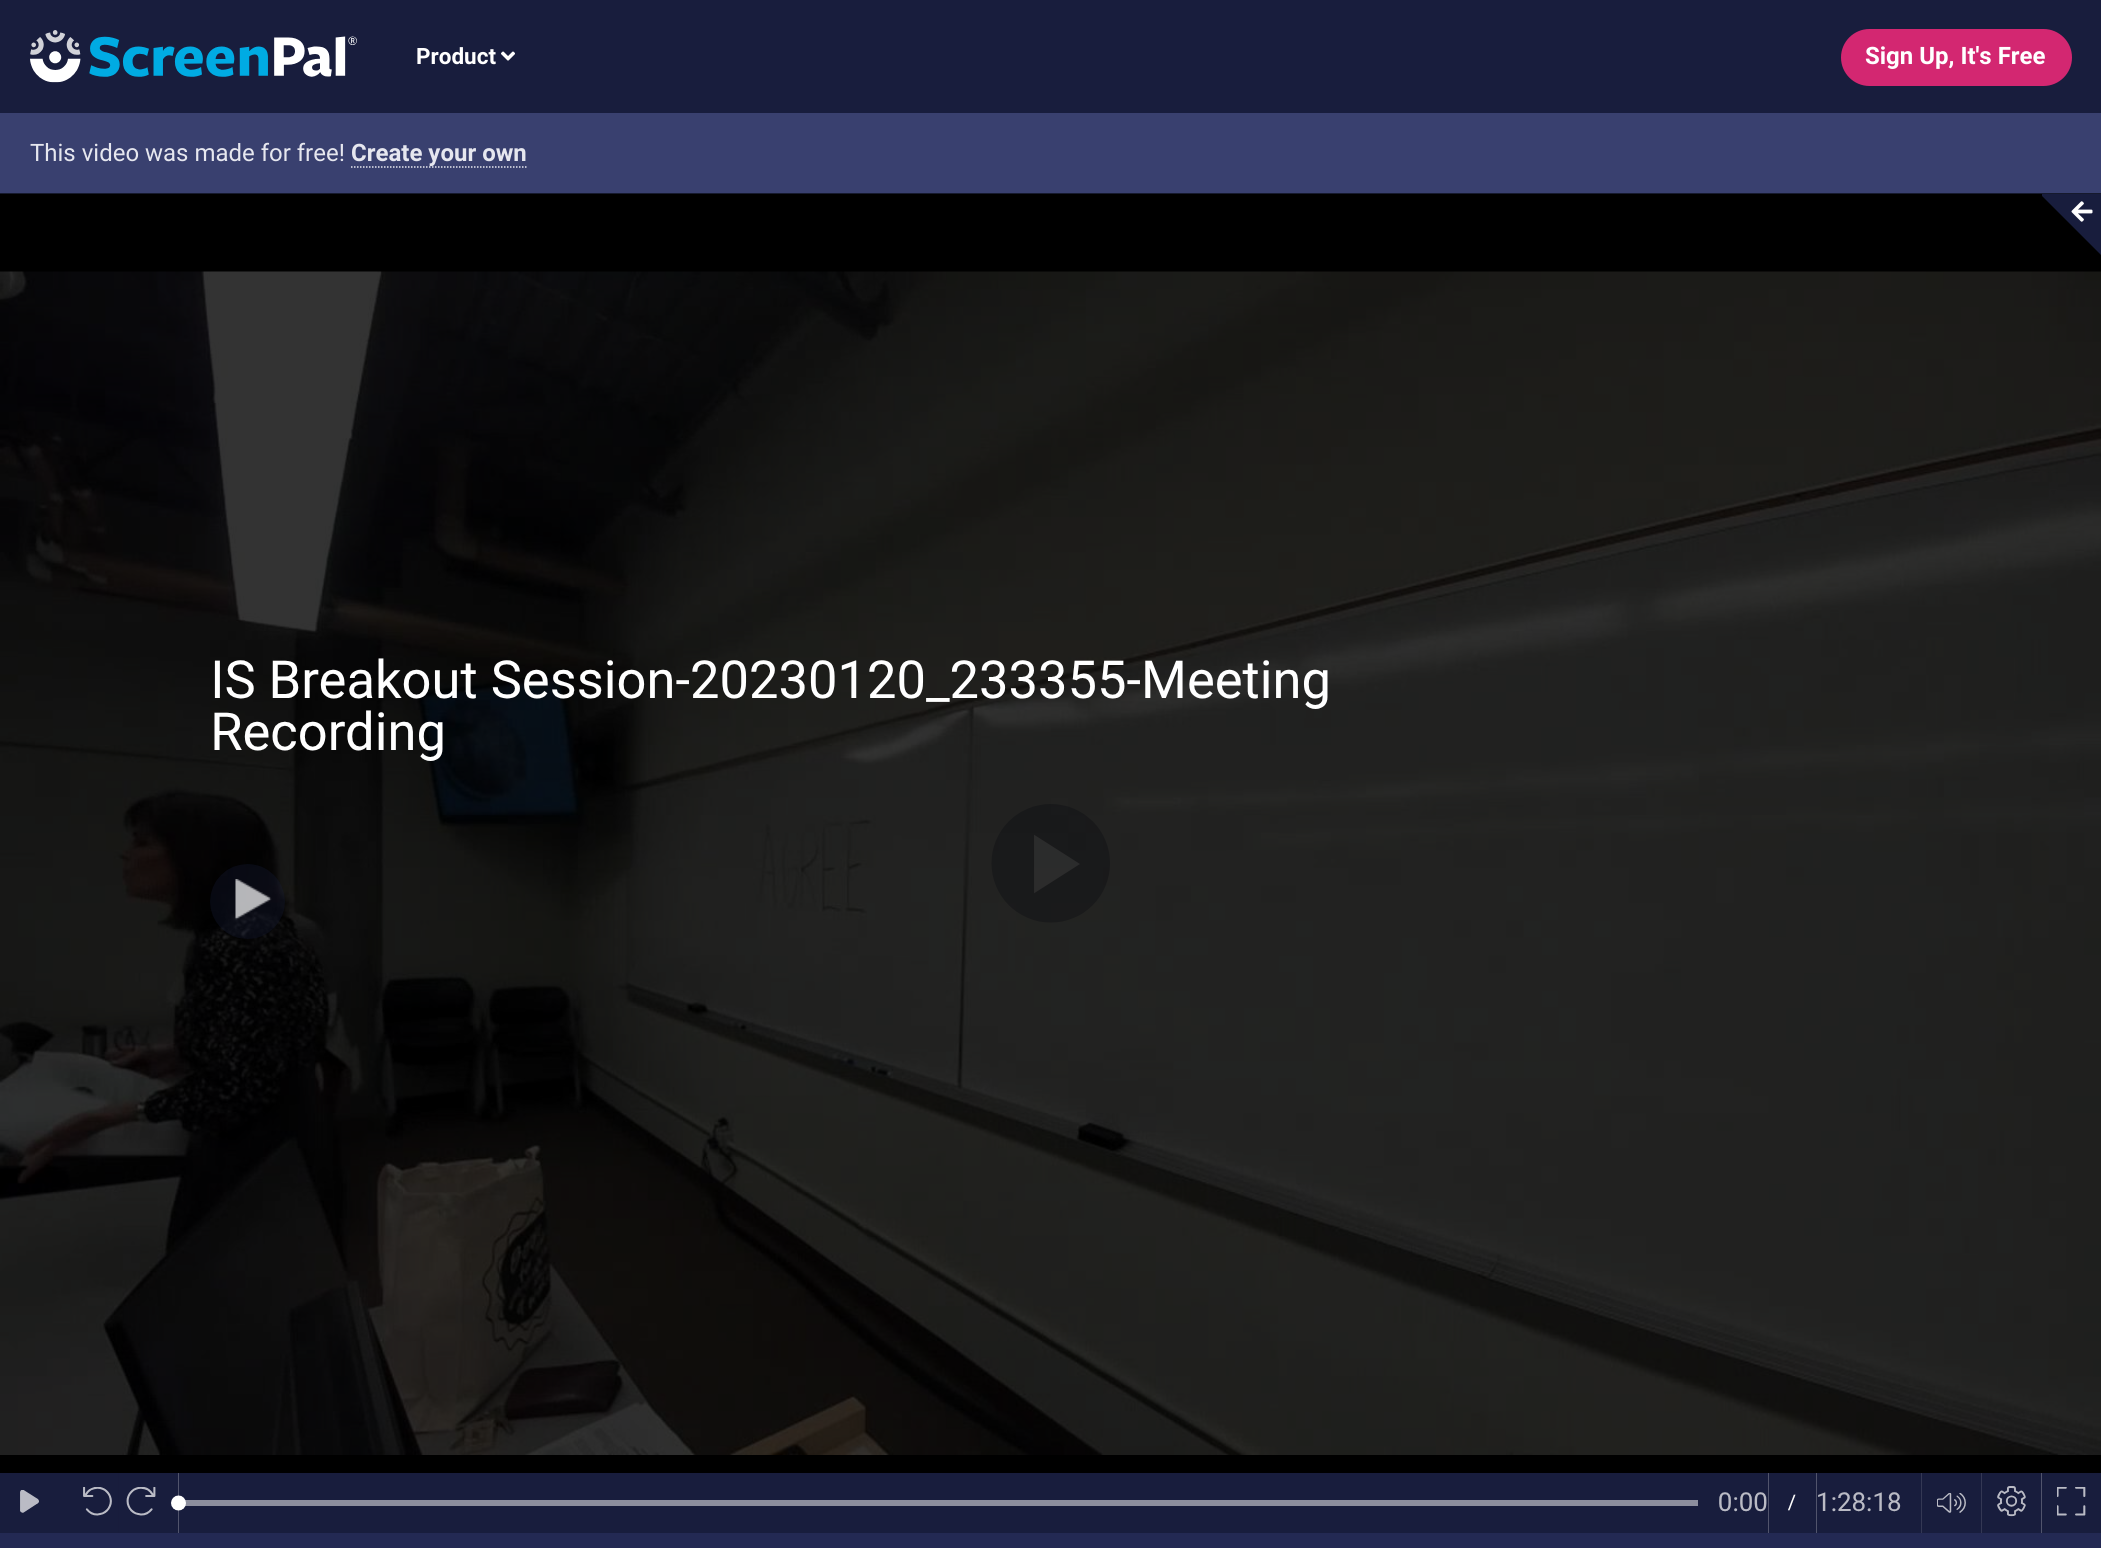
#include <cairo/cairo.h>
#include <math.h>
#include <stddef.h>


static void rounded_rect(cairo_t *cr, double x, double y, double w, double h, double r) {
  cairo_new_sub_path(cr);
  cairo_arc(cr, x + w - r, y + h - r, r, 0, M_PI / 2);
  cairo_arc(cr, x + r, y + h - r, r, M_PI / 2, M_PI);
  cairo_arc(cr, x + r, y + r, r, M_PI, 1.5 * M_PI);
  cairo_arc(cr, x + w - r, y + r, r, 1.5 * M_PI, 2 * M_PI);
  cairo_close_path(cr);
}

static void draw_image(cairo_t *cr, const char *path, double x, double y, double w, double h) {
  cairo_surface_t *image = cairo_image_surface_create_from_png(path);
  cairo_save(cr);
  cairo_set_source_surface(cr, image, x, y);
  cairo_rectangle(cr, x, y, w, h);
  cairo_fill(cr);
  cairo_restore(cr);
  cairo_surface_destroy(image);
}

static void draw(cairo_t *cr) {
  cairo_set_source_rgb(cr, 35 / 255.0, 41 / 255.0, 83 / 255.0);
  cairo_paint(cr);
  cairo_set_source_rgb(cr, 24 / 255.0, 29 / 255.0, 61 / 255.0);
  cairo_rectangle(cr, 0, 0, 2101, 113);
  cairo_fill(cr);
  draw_image(cr, "images/1.png", 30, 30, 327, 53);
  draw_image(cr, "images/2.png", 501, 51, 14, 10);
  cairo_set_source_rgb(cr, 211 / 255.0, 39 / 255.0, 113 / 255.0);
  rounded_rect(cr, 1842, 30, 229, 55, 27.5);
  cairo_fill_preserve(cr);
  cairo_stroke(cr);
  cairo_set_source_rgb(cr, 57 / 255.0, 64 / 255.0, 111 / 255.0);
  cairo_rectangle(cr, 0, 113, 2101, 81);
  cairo_fill(cr);
  cairo_new_path(cr);
  cairo_move_to(cr, 351, 167);
  cairo_line_to(cr, 526.5, 167);
  cairo_set_source_rgb(cr, 230 / 255.0, 231 / 255.0, 239 / 255.0);
  cairo_set_line_width(cr, 1.5);
  cairo_set_dash(cr, (double[]){1.5, 1.5}, 2, 0);
  cairo_stroke(cr);
  draw_image(cr, "images/3.png", 0, 193, 2101, 1340);
  cairo_set_source_rgb(cr, 24 / 255.0, 29 / 255.0, 61 / 255.0);
  cairo_new_path(cr);
  cairo_move_to(cr, 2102, 194);
  cairo_line_to(cr, 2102, 256);
  cairo_line_to(cr, 2042, 196);
  cairo_line_to(cr, 2042, 194);
  cairo_close_path(cr);
  cairo_fill(cr);
  draw_image(cr, "images/4.png", 2071, 201, 22, 21);
  cairo_select_font_face(cr, "Roboto", CAIRO_FONT_SLANT_NORMAL, CAIRO_FONT_WEIGHT_BOLD);
  cairo_set_font_size(cr, 22.5);
  cairo_set_source_rgb(cr, 1, 1, 1);
  cairo_move_to(cr, 416, 64);
  cairo_show_text(cr, "Product");
  cairo_set_font_size(cr, 24);
  cairo_move_to(cr, 1865, 64);
  cairo_show_text(cr, "Sign Up, It's Free");
  cairo_select_font_face(cr, "Roboto", CAIRO_FONT_SLANT_NORMAL, CAIRO_FONT_WEIGHT_NORMAL);
  cairo_set_source_rgb(cr, 230 / 255.0, 231 / 255.0, 239 / 255.0);
  cairo_move_to(cr, 30, 161);
  cairo_show_text(cr, "This video was made for free!");
  cairo_select_font_face(cr, "Roboto", CAIRO_FONT_SLANT_NORMAL, CAIRO_FONT_WEIGHT_BOLD);
  cairo_move_to(cr, 351, 161);
  cairo_show_text(cr, "Create your own");
}

int main(void) {
  cairo_surface_t *surface = cairo_image_surface_create(CAIRO_FORMAT_RGB24, 2101, 1548);
  cairo_t *cr = cairo_create(surface);
  cairo_font_options_t *options = cairo_font_options_create();
  cairo_font_options_set_hint_metrics(options, CAIRO_HINT_METRICS_OFF);
  cairo_font_options_set_hint_style(options, CAIRO_HINT_STYLE_NONE);
  cairo_set_font_options(cr, options);
  cairo_set_miter_limit(cr, 4);
  draw(cr);
  cairo_surface_write_to_png(surface, "out.png");
  cairo_font_options_destroy(options);
  cairo_destroy(cr);
  cairo_surface_destroy(surface);
  return 0;
}
